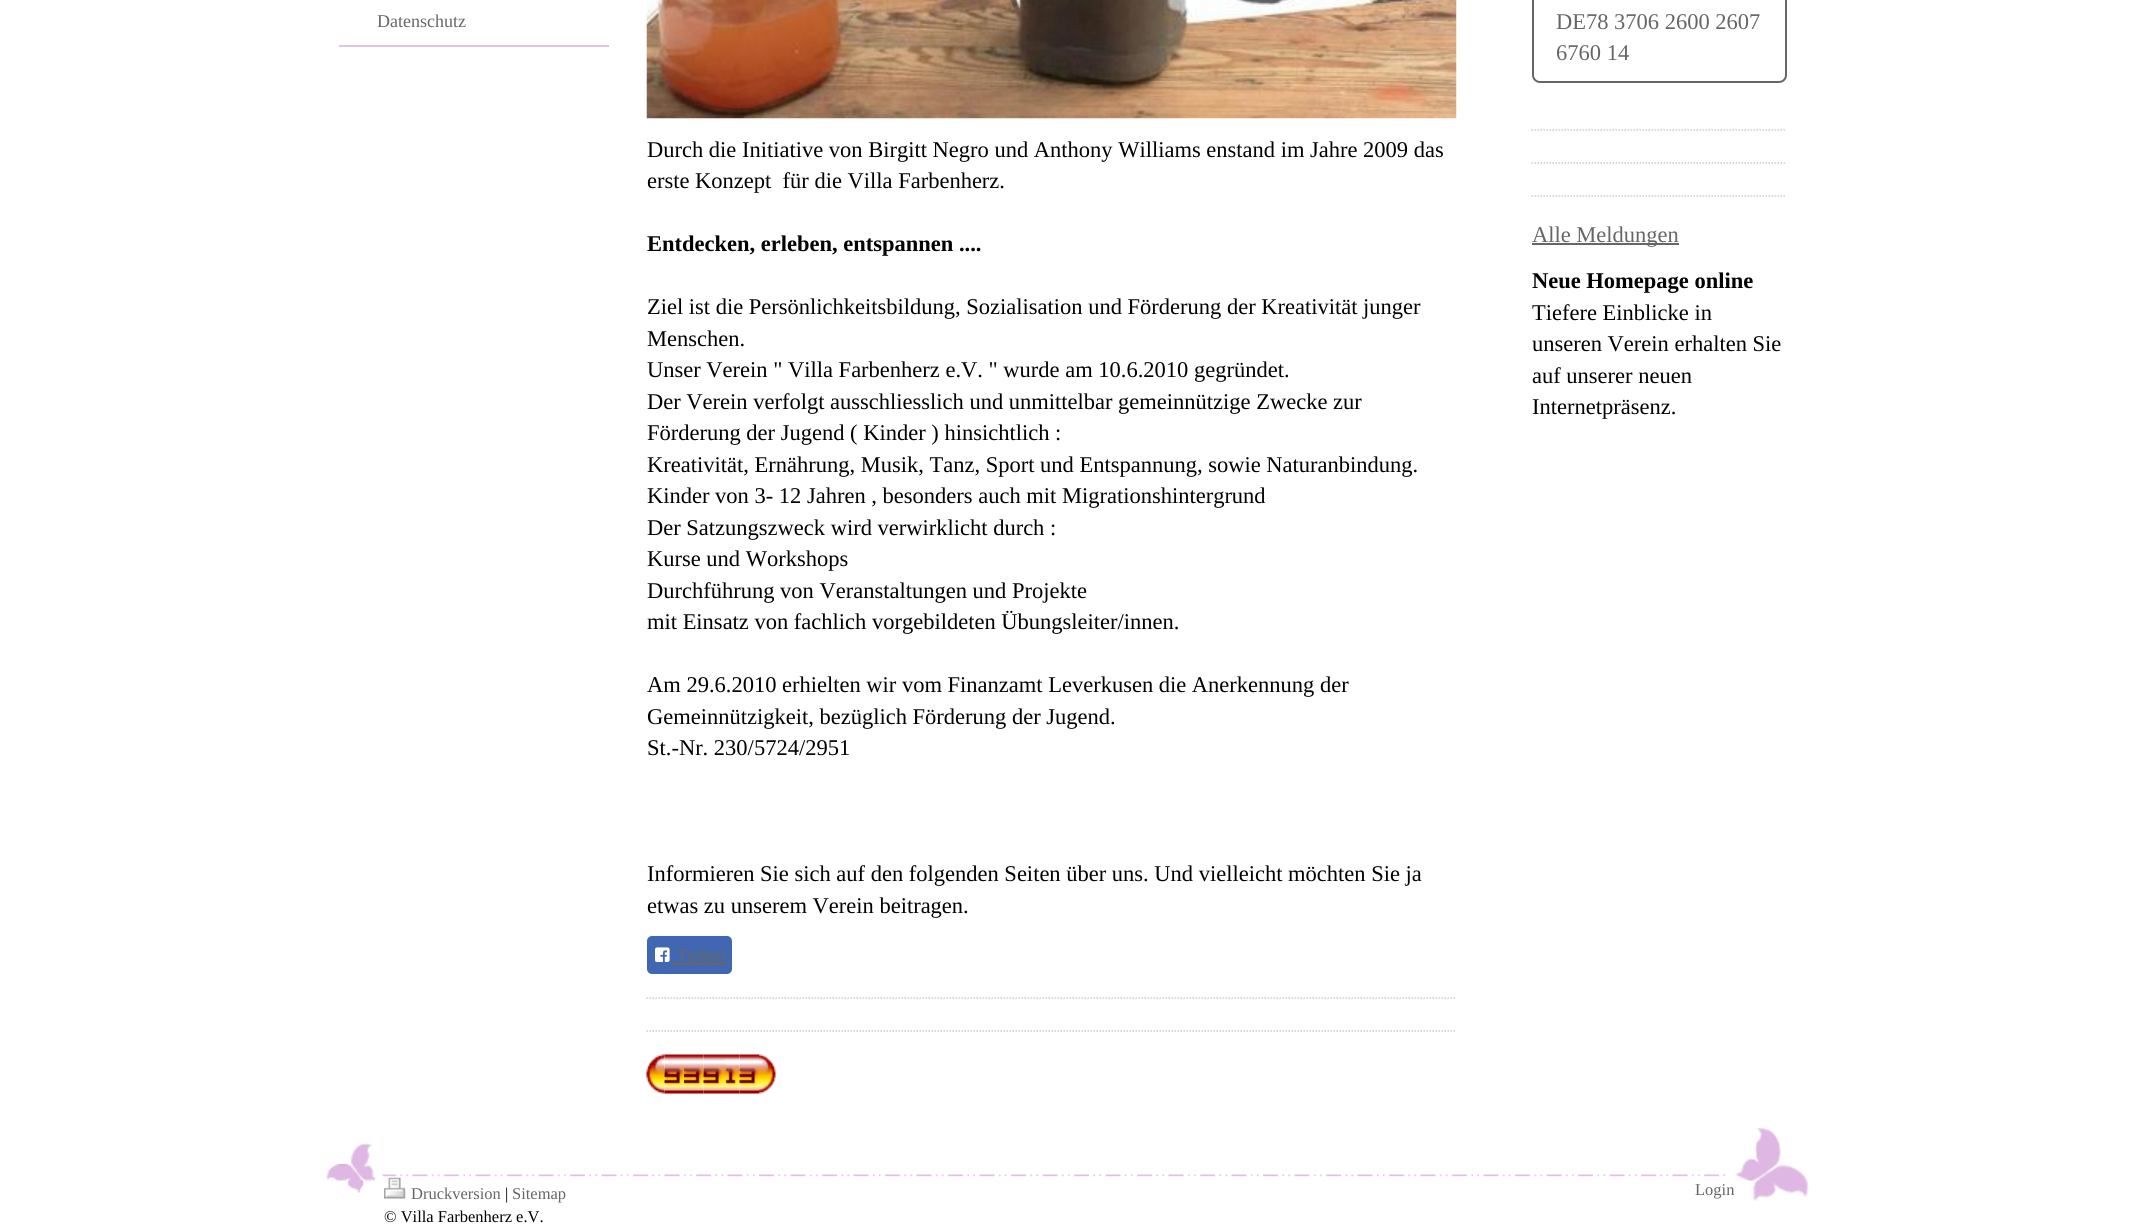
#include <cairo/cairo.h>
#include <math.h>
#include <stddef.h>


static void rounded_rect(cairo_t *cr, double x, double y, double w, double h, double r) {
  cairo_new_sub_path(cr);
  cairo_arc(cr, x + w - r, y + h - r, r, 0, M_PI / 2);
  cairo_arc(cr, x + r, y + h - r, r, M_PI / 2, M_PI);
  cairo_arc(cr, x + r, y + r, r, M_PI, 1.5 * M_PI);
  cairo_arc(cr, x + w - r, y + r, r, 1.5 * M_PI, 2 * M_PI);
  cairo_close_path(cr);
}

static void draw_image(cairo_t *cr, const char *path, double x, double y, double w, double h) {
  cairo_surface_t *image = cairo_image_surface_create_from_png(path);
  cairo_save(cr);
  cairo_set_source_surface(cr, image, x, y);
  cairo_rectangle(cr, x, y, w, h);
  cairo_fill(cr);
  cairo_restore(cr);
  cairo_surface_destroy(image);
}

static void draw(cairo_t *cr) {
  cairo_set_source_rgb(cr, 1, 1, 1);
  cairo_paint(cr);
  cairo_set_source_rgb(cr, 223 / 255.0, 197 / 255.0, 223 / 255.0);
  cairo_rectangle(cr, 339, 45, 270, 2);
  cairo_fill(cr);
  draw_image(cr, "images/1.png", 646, 0, 811, 119);
  cairo_set_source_rgb(cr, 66 / 255.0, 103 / 255.0, 178 / 255.0);
  rounded_rect(cr, 647, 936, 85, 38, 5);
  cairo_fill(cr);
  draw_image(cr, "images/2.png", 655, 947, 15, 15);
  cairo_set_source_rgb(cr, 102 / 255.0, 102 / 255.0, 102 / 255.0);
  cairo_rectangle(cr, 672, 963, 54, 2);
  cairo_fill(cr);
  cairo_new_path(cr);
  cairo_move_to(cr, 646.5, 998);
  cairo_line_to(cr, 1456.5, 998);
  cairo_set_source_rgb(cr, 204 / 255.0, 204 / 255.0, 204 / 255.0);
  cairo_set_line_width(cr, 1.5);
  cairo_set_dash(cr, (double[]){1.5, 1.5}, 2, 0);
  cairo_stroke(cr);
  cairo_new_path(cr);
  cairo_move_to(cr, 646.5, 1031);
  cairo_line_to(cr, 1456.5, 1031);
  cairo_stroke(cr);
  draw_image(cr, "images/3.png", 646, 1054, 19, 40);
  draw_image(cr, "images/4.png", 664, 1054, 20, 40);
  draw_image(cr, "images/5.png", 684, 1054, 20, 40);
  draw_image(cr, "images/6.png", 703, 1054, 20, 40);
  draw_image(cr, "images/7.png", 723, 1054, 17, 40);
  draw_image(cr, "images/8.png", 739, 1054, 20, 40);
  draw_image(cr, "images/9.png", 759, 1054, 17, 40);
  rounded_rect(cr, 1533, -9, 253, 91, 7);
  cairo_set_source_rgb(cr, 102 / 255.0, 102 / 255.0, 102 / 255.0);
  cairo_set_line_width(cr, 2);
  cairo_set_dash(cr, NULL, 0, 0);
  cairo_stroke(cr);
  cairo_new_path(cr);
  cairo_move_to(cr, 1531.5, 130);
  cairo_line_to(cr, 1786.5, 130);
  cairo_set_source_rgb(cr, 204 / 255.0, 204 / 255.0, 204 / 255.0);
  cairo_set_line_width(cr, 1.5);
  cairo_set_dash(cr, (double[]){1.5, 1.5}, 2, 0);
  cairo_stroke(cr);
  cairo_new_path(cr);
  cairo_move_to(cr, 1531.5, 163);
  cairo_line_to(cr, 1786.5, 163);
  cairo_stroke(cr);
  cairo_new_path(cr);
  cairo_move_to(cr, 1531.5, 196);
  cairo_line_to(cr, 1786.5, 196);
  cairo_stroke(cr);
  cairo_set_source_rgb(cr, 102 / 255.0, 102 / 255.0, 102 / 255.0);
  cairo_rectangle(cr, 1532, 243, 147, 2);
  cairo_fill(cr);
  draw_image(cr, "images/10.png", 326, 1127, 1483, 74);
  draw_image(cr, "images/11.png", 384, 1177, 22, 22);
  cairo_select_font_face(cr, "Liberation Serif", CAIRO_FONT_SLANT_NORMAL, CAIRO_FONT_WEIGHT_NORMAL);
  cairo_set_font_size(cr, 18);
  cairo_move_to(cr, 377, 27);
  cairo_show_text(cr, "Datenschutz");
  cairo_set_font_size(cr, 22.5);
  cairo_set_source_rgb(cr, 0, 0, 0);
  cairo_move_to(cr, 647, 157);
  cairo_show_text(cr, "Durch die Initiative von Birgitt Negro und Anthony Williams enstand im Jahre 2009 das");
  cairo_move_to(cr, 647, 188);
  cairo_show_text(cr, "erste Konzept  für die Villa Farbenherz.");
  cairo_select_font_face(cr, "Liberation Serif", CAIRO_FONT_SLANT_NORMAL, CAIRO_FONT_WEIGHT_BOLD);
  cairo_move_to(cr, 647, 251);
  cairo_show_text(cr, "Entdecken, erleben, entspannen ....");
  cairo_select_font_face(cr, "Liberation Serif", CAIRO_FONT_SLANT_NORMAL, CAIRO_FONT_WEIGHT_NORMAL);
  cairo_move_to(cr, 647, 314);
  cairo_show_text(cr, "Ziel ist die Persönlichkeitsbildung, Sozialisation und Förderung der Kreativität junger");
  cairo_move_to(cr, 647, 346);
  cairo_show_text(cr, "Menschen.");
  cairo_move_to(cr, 647, 377);
  cairo_show_text(cr, "Unser Verein \" Villa Farbenherz e.V. \" wurde am 10.6.2010 gegründet.");
  cairo_move_to(cr, 647, 409);
  cairo_show_text(cr, "Der Verein verfolgt ausschliesslich und unmittelbar gemeinnützige Zwecke zur");
  cairo_move_to(cr, 647, 440);
  cairo_show_text(cr, "Förderung der Jugend ( Kinder ) hinsichtlich :");
  cairo_move_to(cr, 647, 472);
  cairo_show_text(cr, "Kreativität, Ernährung, Musik, Tanz, Sport und Entspannung, sowie Naturanbindung.");
  cairo_move_to(cr, 647, 503);
  cairo_show_text(cr, "Kinder von 3- 12 Jahren , besonders auch mit Migrationshintergrund");
  cairo_move_to(cr, 647, 535);
  cairo_show_text(cr, "Der Satzungszweck wird verwirklicht durch :");
  cairo_move_to(cr, 647, 566);
  cairo_show_text(cr, "Kurse und Workshops");
  cairo_move_to(cr, 647, 598);
  cairo_show_text(cr, "Durchführung von Veranstaltungen und Projekte");
  cairo_move_to(cr, 647, 629);
  cairo_show_text(cr, "mit Einsatz von fachlich vorgebildeten Übungsleiter/innen.");
  cairo_move_to(cr, 647, 692);
  cairo_show_text(cr, "Am 29.6.2010 erhielten wir vom Finanzamt Leverkusen die Anerkennung der");
  cairo_move_to(cr, 647, 724);
  cairo_show_text(cr, "Gemeinnützigkeit, bezüglich Förderung der Jugend.");
  cairo_move_to(cr, 647, 755);
  cairo_show_text(cr, "St.-Nr. 230/5724/2951");
  cairo_move_to(cr, 647, 881);
  cairo_show_text(cr, "Informieren Sie sich auf den folgenden Seiten über uns. Und vielleicht möchten Sie ja");
  cairo_move_to(cr, 647, 913);
  cairo_show_text(cr, "etwas zu unserem Verein beitragen.");
  cairo_select_font_face(cr, "Liberation Sans", CAIRO_FONT_SLANT_NORMAL, CAIRO_FONT_WEIGHT_NORMAL);
  cairo_set_font_size(cr, 18);
  cairo_set_source_rgb(cr, 102 / 255.0, 102 / 255.0, 102 / 255.0);
  cairo_move_to(cr, 677, 962);
  cairo_show_text(cr, "Teilen");
  cairo_select_font_face(cr, "Liberation Serif", CAIRO_FONT_SLANT_NORMAL, CAIRO_FONT_WEIGHT_NORMAL);
  cairo_set_font_size(cr, 22.5);
  cairo_move_to(cr, 1556, 29);
  cairo_show_text(cr, "DE78 3706 2600 2607");
  cairo_move_to(cr, 1556, 60);
  cairo_show_text(cr, "6760 14");
  cairo_move_to(cr, 1532, 242);
  cairo_show_text(cr, "Alle Meldungen");
  cairo_select_font_face(cr, "Liberation Serif", CAIRO_FONT_SLANT_NORMAL, CAIRO_FONT_WEIGHT_BOLD);
  cairo_set_source_rgb(cr, 0, 0, 0);
  cairo_move_to(cr, 1532, 288);
  cairo_show_text(cr, "Neue Homepage online");
  cairo_select_font_face(cr, "Liberation Serif", CAIRO_FONT_SLANT_NORMAL, CAIRO_FONT_WEIGHT_NORMAL);
  cairo_move_to(cr, 1532, 320);
  cairo_show_text(cr, "Tiefere Einblicke in");
  cairo_move_to(cr, 1532, 351);
  cairo_show_text(cr, "unseren Verein erhalten Sie");
  cairo_move_to(cr, 1532, 383);
  cairo_show_text(cr, "auf unserer neuen");
  cairo_move_to(cr, 1532, 414);
  cairo_show_text(cr, "Internetpräsenz.");
  cairo_set_font_size(cr, 16.5);
  cairo_set_source_rgb(cr, 102 / 255.0, 102 / 255.0, 102 / 255.0);
  cairo_move_to(cr, 411, 1199);
  cairo_show_text(cr, "Druckversion");
  cairo_set_source_rgb(cr, 0, 0, 0);
  cairo_move_to(cr, 505, 1199);
  cairo_show_text(cr, "|");
  cairo_set_source_rgb(cr, 102 / 255.0, 102 / 255.0, 102 / 255.0);
  cairo_move_to(cr, 512, 1199);
  cairo_show_text(cr, "Sitemap");
  cairo_set_source_rgb(cr, 0, 0, 0);
  cairo_move_to(cr, 384, 1222);
  cairo_show_text(cr, "© Villa Farbenherz e.V.");
  cairo_set_source_rgb(cr, 102 / 255.0, 102 / 255.0, 102 / 255.0);
  cairo_move_to(cr, 1695, 1195);
  cairo_show_text(cr, "Login");
}

int main(void) {
  cairo_surface_t *surface = cairo_image_surface_create(CAIRO_FORMAT_RGB24, 2132, 1232);
  cairo_t *cr = cairo_create(surface);
  cairo_font_options_t *options = cairo_font_options_create();
  cairo_font_options_set_hint_metrics(options, CAIRO_HINT_METRICS_OFF);
  cairo_font_options_set_hint_style(options, CAIRO_HINT_STYLE_NONE);
  cairo_set_font_options(cr, options);
  cairo_set_miter_limit(cr, 4);
  draw(cr);
  cairo_surface_write_to_png(surface, "out.png");
  cairo_font_options_destroy(options);
  cairo_destroy(cr);
  cairo_surface_destroy(surface);
  return 0;
}
